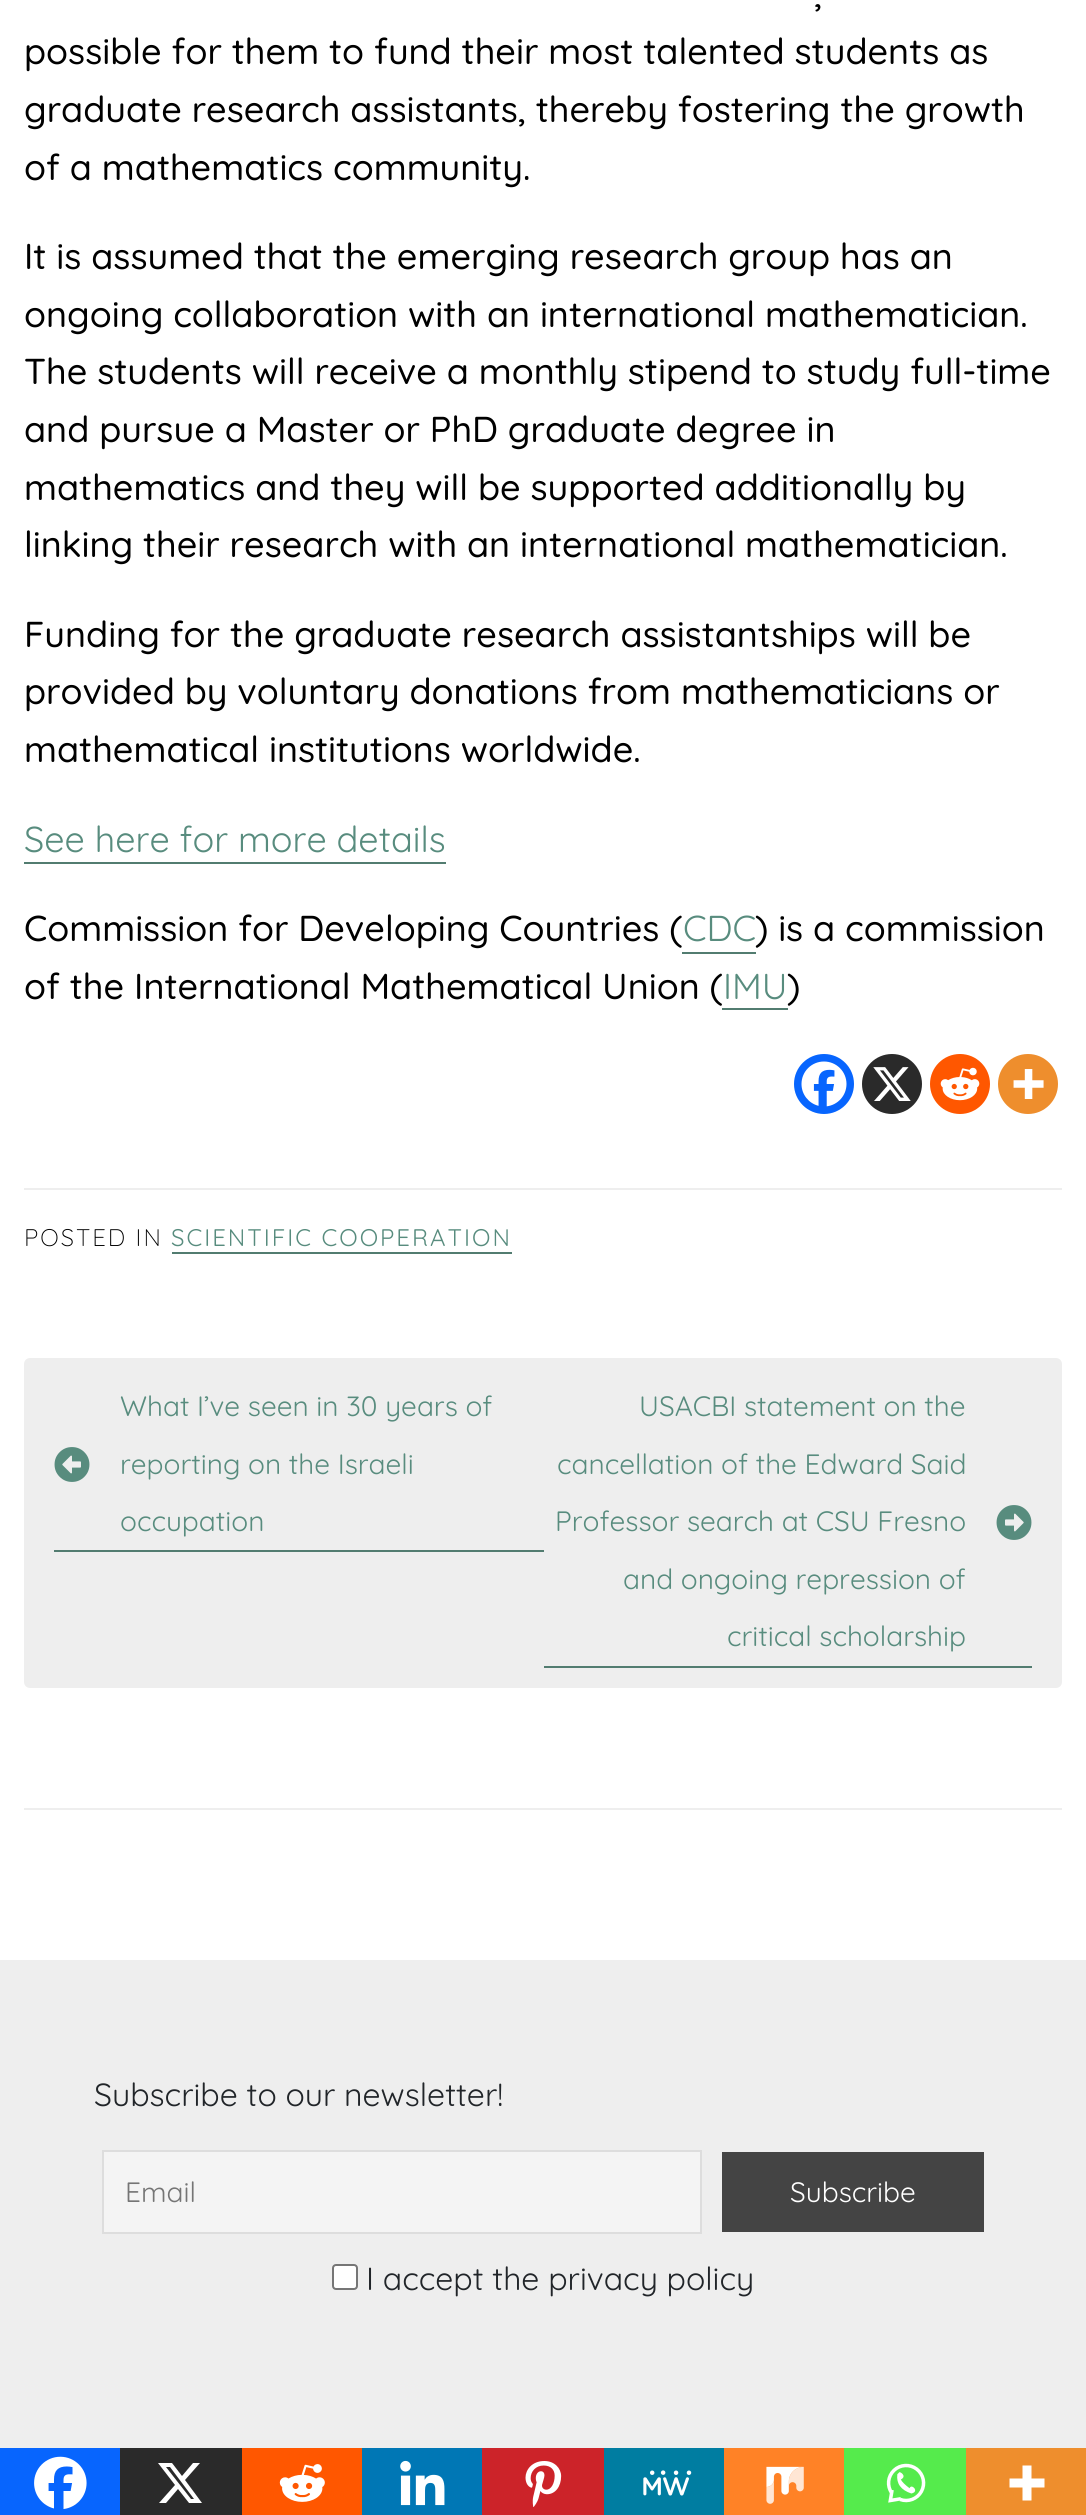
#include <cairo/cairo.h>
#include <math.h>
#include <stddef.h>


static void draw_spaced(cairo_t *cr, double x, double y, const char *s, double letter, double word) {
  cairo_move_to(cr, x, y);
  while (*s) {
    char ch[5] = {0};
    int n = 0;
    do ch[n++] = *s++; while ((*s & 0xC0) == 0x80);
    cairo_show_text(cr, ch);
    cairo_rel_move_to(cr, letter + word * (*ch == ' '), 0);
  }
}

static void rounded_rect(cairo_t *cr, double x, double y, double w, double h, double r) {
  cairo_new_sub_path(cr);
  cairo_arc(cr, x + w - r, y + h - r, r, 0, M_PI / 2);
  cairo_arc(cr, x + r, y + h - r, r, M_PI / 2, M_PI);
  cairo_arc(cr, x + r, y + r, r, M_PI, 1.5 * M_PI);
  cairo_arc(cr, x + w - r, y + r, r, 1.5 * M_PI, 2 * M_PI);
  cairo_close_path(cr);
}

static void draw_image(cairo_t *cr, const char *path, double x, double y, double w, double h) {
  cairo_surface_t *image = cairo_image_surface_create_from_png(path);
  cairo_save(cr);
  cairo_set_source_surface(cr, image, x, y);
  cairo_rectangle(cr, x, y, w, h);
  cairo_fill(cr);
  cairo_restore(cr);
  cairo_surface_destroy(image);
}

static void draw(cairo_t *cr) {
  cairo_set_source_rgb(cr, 1, 1, 1);
  cairo_paint(cr);
  cairo_set_source_rgb(cr, 238 / 255.0, 238 / 255.0, 238 / 255.0);
  cairo_rectangle(cr, 24, 1808, 1038, 2);
  cairo_fill(cr);
  cairo_set_source_rgb(cr, 82 / 255.0, 124 / 255.0, 112 / 255.0);
  cairo_rectangle(cr, 24, 862, 422, 2);
  cairo_fill(cr);
  cairo_rectangle(cr, 682, 952, 74, 2);
  cairo_fill(cr);
  cairo_rectangle(cr, 722, 1008, 66, 2);
  cairo_fill(cr);
  cairo_set_source_rgb(cr, 7 / 255.0, 101 / 255.0, 254 / 255.0);
  cairo_arc(cr, 824, 1084, 30, 0, 2 * M_PI);
  cairo_fill(cr);
  draw_image(cr, "images/1.png", 801, 1061, 46, 46);
  cairo_set_source_rgb(cr, 42 / 255.0, 42 / 255.0, 42 / 255.0);
  cairo_arc(cr, 892, 1084, 30, 0, 2 * M_PI);
  cairo_fill(cr);
  draw_image(cr, "images/2.png", 873, 1067, 38, 34);
  cairo_set_source_rgb(cr, 1, 87 / 255.0, 0);
  cairo_arc(cr, 960, 1084, 30, 0, 2 * M_PI);
  cairo_fill(cr);
  draw_image(cr, "images/3.png", 940, 1067, 40, 34);
  cairo_set_source_rgb(cr, 238 / 255.0, 142 / 255.0, 45 / 255.0);
  cairo_arc(cr, 1028, 1084, 30, 0, 2 * M_PI);
  cairo_fill(cr);
  draw_image(cr, "images/4.png", 1013, 1069, 31, 30);
  cairo_set_source_rgb(cr, 7 / 255.0, 101 / 255.0, 254 / 255.0);
  cairo_rectangle(cr, 0, 2448, 120, 67);
  cairo_fill(cr);
  draw_image(cr, "images/5.png", 34, 2456, 53, 53);
  cairo_set_source_rgb(cr, 42 / 255.0, 42 / 255.0, 42 / 255.0);
  cairo_rectangle(cr, 120, 2448, 122, 67);
  cairo_fill(cr);
  cairo_set_source_rgb(cr, 1, 1, 1);
  cairo_new_path(cr);
  cairo_move_to(cr, 193, 2463);
  cairo_line_to(cr, 200, 2463);
  cairo_line_to(cr, 185, 2480);
  cairo_line_to(cr, 202, 2503);
  cairo_line_to(cr, 189, 2503);
  cairo_line_to(cr, 178, 2489);
  cairo_line_to(cr, 166, 2503);
  cairo_line_to(cr, 159, 2503);
  cairo_line_to(cr, 175, 2485);
  cairo_line_to(cr, 158, 2463);
  cairo_line_to(cr, 172, 2463);
  cairo_line_to(cr, 182, 2476);
  cairo_close_path(cr);
  cairo_move_to(cr, 191, 2499);
  cairo_line_to(cr, 194, 2499);
  cairo_line_to(cr, 170, 2467);
  cairo_line_to(cr, 166, 2467);
  cairo_close_path(cr);
  cairo_fill(cr);
  cairo_set_source_rgb(cr, 1, 87 / 255.0, 0);
  cairo_rectangle(cr, 242, 2448, 120, 67);
  cairo_fill(cr);
  draw_image(cr, "images/6.png", 279, 2464, 46, 38);
  cairo_set_source_rgb(cr, 0, 119 / 255.0, 181 / 255.0);
  cairo_rectangle(cr, 362, 2448, 120, 67);
  cairo_fill(cr);
  draw_image(cr, "images/7.png", 400, 2460, 45, 46);
  cairo_set_source_rgb(cr, 204 / 255.0, 35 / 255.0, 41 / 255.0);
  cairo_rectangle(cr, 482, 2448, 122, 67);
  cairo_fill(cr);
  draw_image(cr, "images/8.png", 525, 2461, 37, 46);
  cairo_set_source_rgb(cr, 0, 125 / 255.0, 161 / 255.0);
  cairo_rectangle(cr, 604, 2448, 120, 67);
  cairo_fill(cr);
  draw_image(cr, "images/9.png", 643, 2470, 49, 26);
  cairo_set_source_rgb(cr, 1, 130 / 255.0, 38 / 255.0);
  cairo_rectangle(cr, 724, 2448, 120, 67);
  cairo_fill(cr);
  draw_image(cr, "images/10.png", 766, 2466, 38, 38);
  cairo_set_source_rgb(cr, 85 / 255.0, 235 / 255.0, 76 / 255.0);
  cairo_rectangle(cr, 844, 2448, 122, 67);
  cairo_fill(cr);
  draw_image(cr, "images/11.png", 886, 2463, 40, 40);
  cairo_set_source_rgb(cr, 238 / 255.0, 142 / 255.0, 45 / 255.0);
  cairo_rectangle(cr, 966, 2448, 120, 67);
  cairo_fill(cr);
  cairo_set_source_rgb(cr, 1, 1, 1);
  cairo_set_fill_rule(cr, CAIRO_FILL_RULE_EVEN_ODD);
  cairo_new_path(cr);
  cairo_move_to(cr, 1031.5, 2478.5);
  cairo_line_to(cr, 1031.5, 2465.5);
  cairo_line_to(cr, 1022.5, 2465.5);
  cairo_line_to(cr, 1022.5, 2478.5);
  cairo_line_to(cr, 1009.5, 2478.5);
  cairo_line_to(cr, 1009.5, 2487.5);
  cairo_line_to(cr, 1022.5, 2487.5);
  cairo_line_to(cr, 1022.5, 2500.5);
  cairo_line_to(cr, 1031.5, 2500.5);
  cairo_line_to(cr, 1031.5, 2487.5);
  cairo_line_to(cr, 1044.5, 2487.5);
  cairo_line_to(cr, 1044.5, 2478.5);
  cairo_close_path(cr);
  cairo_fill(cr);
  cairo_set_source_rgb(cr, 238 / 255.0, 238 / 255.0, 238 / 255.0);
  cairo_rectangle(cr, 24, 1188, 1038, 2);
  cairo_fill(cr);
  cairo_set_source_rgb(cr, 82 / 255.0, 124 / 255.0, 112 / 255.0);
  cairo_rectangle(cr, 172, 1252, 340, 2);
  cairo_fill(cr);
  cairo_set_source_rgb(cr, 238 / 255.0, 238 / 255.0, 238 / 255.0);
  rounded_rect(cr, 24, 1358, 1038, 330, 6);
  cairo_fill(cr);
  cairo_set_source_rgb(cr, 82 / 255.0, 124 / 255.0, 112 / 255.0);
  cairo_rectangle(cr, 54, 1550, 490, 2);
  cairo_fill(cr);
  draw_image(cr, "images/12.png", 54, 1447, 36, 35);
  cairo_rectangle(cr, 544, 1666, 488, 2);
  cairo_fill(cr);
  draw_image(cr, "images/13.png", 996, 1505, 36, 35);
  cairo_set_source_rgb(cr, 238 / 255.0, 238 / 255.0, 238 / 255.0);
  cairo_rectangle(cr, 0, 1960, 1086, 488);
  cairo_fill(cr);
  cairo_set_source_rgb(cr, 244 / 255.0, 244 / 255.0, 244 / 255.0);
  cairo_rectangle(cr, 103, 2151, 598, 82);
  cairo_fill_preserve(cr);
  cairo_set_source_rgb(cr, 221 / 255.0, 221 / 255.0, 221 / 255.0);
  cairo_stroke(cr);
  cairo_set_source_rgb(cr, 68 / 255.0, 68 / 255.0, 68 / 255.0);
  cairo_rectangle(cr, 722, 2152, 262, 80);
  cairo_fill(cr);
  cairo_set_source_rgb(cr, 1, 1, 1);
  rounded_rect(cr, 333, 2265, 24, 24, 3);
  cairo_fill_preserve(cr);
  cairo_set_source_rgb(cr, 118 / 255.0, 118 / 255.0, 118 / 255.0);
  cairo_stroke(cr);
  cairo_select_font_face(cr, "Quicksand Medium", CAIRO_FONT_SLANT_NORMAL, CAIRO_FONT_WEIGHT_NORMAL);
  cairo_set_font_size(cr, 36);
  cairo_set_source_rgb(cr, 0, 0, 0);
  cairo_move_to(cr, 814, 7);
  cairo_show_text(cr, ",");
  cairo_move_to(cr, 24, 64);
  cairo_show_text(cr, "possible for them to fund their most talented students as");
  cairo_move_to(cr, 24, 122);
  cairo_show_text(cr, "graduate research assistants, thereby fostering the growth");
  cairo_move_to(cr, 24, 180);
  cairo_show_text(cr, "of a mathematics community.");
  cairo_move_to(cr, 24, 269);
  cairo_show_text(cr, "It is assumed that the emerging research group has an");
  cairo_move_to(cr, 24, 327);
  cairo_show_text(cr, "ongoing collaboration with an international mathematician.");
  cairo_move_to(cr, 24, 384);
  cairo_show_text(cr, "The students will receive a monthly stipend to study full-time");
  cairo_move_to(cr, 24, 442);
  cairo_show_text(cr, "and pursue a Master or PhD graduate degree in");
  cairo_move_to(cr, 24, 500);
  cairo_show_text(cr, "mathematics and they will be supported additionally by");
  cairo_move_to(cr, 24, 557);
  cairo_show_text(cr, "linking their research with an international mathematician.");
  cairo_move_to(cr, 24, 647);
  cairo_show_text(cr, "Funding for the graduate research assistantships will be");
  cairo_move_to(cr, 24, 704);
  cairo_show_text(cr, "provided by voluntary donations from mathematicians or");
  cairo_move_to(cr, 24, 762);
  cairo_show_text(cr, "mathematical institutions worldwide.");
  cairo_select_font_face(cr, "Quicksand", CAIRO_FONT_SLANT_NORMAL, CAIRO_FONT_WEIGHT_NORMAL);
  cairo_set_source_rgb(cr, 88 / 255.0, 140 / 255.0, 126 / 255.0);
  cairo_move_to(cr, 24, 852);
  cairo_show_text(cr, "See here for more details");
  cairo_select_font_face(cr, "Quicksand Medium", CAIRO_FONT_SLANT_NORMAL, CAIRO_FONT_WEIGHT_NORMAL);
  cairo_set_source_rgb(cr, 0, 0, 0);
  cairo_move_to(cr, 24, 941);
  cairo_show_text(cr, "Commission for Developing Countries (");
  cairo_select_font_face(cr, "Quicksand", CAIRO_FONT_SLANT_NORMAL, CAIRO_FONT_WEIGHT_NORMAL);
  cairo_set_source_rgb(cr, 88 / 255.0, 140 / 255.0, 126 / 255.0);
  cairo_move_to(cr, 683, 941);
  cairo_show_text(cr, "CDC");
  cairo_select_font_face(cr, "Quicksand Medium", CAIRO_FONT_SLANT_NORMAL, CAIRO_FONT_WEIGHT_NORMAL);
  cairo_set_source_rgb(cr, 0, 0, 0);
  cairo_move_to(cr, 755, 941);
  cairo_show_text(cr, ") is a commission");
  cairo_move_to(cr, 24, 999);
  cairo_show_text(cr, "of the International Mathematical Union (");
  cairo_select_font_face(cr, "Quicksand", CAIRO_FONT_SLANT_NORMAL, CAIRO_FONT_WEIGHT_NORMAL);
  cairo_set_source_rgb(cr, 88 / 255.0, 140 / 255.0, 126 / 255.0);
  cairo_move_to(cr, 723, 999);
  cairo_show_text(cr, "IMU");
  cairo_select_font_face(cr, "Quicksand Medium", CAIRO_FONT_SLANT_NORMAL, CAIRO_FONT_WEIGHT_NORMAL);
  cairo_set_source_rgb(cr, 0, 0, 0);
  cairo_move_to(cr, 787, 999);
  cairo_show_text(cr, ")");
  cairo_select_font_face(cr, "Quicksand Light", CAIRO_FONT_SLANT_NORMAL, CAIRO_FONT_WEIGHT_NORMAL);
  cairo_set_font_size(cr, 24);
  draw_spaced(cr, 24, 1246, "POSTED IN", 2, 0);
  cairo_select_font_face(cr, "Quicksand", CAIRO_FONT_SLANT_NORMAL, CAIRO_FONT_WEIGHT_NORMAL);
  cairo_set_source_rgb(cr, 88 / 255.0, 140 / 255.0, 126 / 255.0);
  draw_spaced(cr, 171, 1246, "SCIENTIFIC COOPERATION", 2, 0);
  cairo_set_font_size(cr, 28);
  cairo_move_to(cr, 120, 1416);
  cairo_show_text(cr, "What I’ve seen in 30 years of");
  cairo_move_to(cr, 120, 1474);
  cairo_show_text(cr, "reporting on the Israeli");
  cairo_move_to(cr, 120, 1531);
  cairo_show_text(cr, "occupation");
  cairo_move_to(cr, 639, 1416);
  cairo_show_text(cr, "USACBI statement on the");
  cairo_move_to(cr, 557, 1474);
  cairo_show_text(cr, "cancellation of the Edward Said");
  cairo_move_to(cr, 555, 1531);
  cairo_show_text(cr, "Professor search at CSU Fresno");
  cairo_move_to(cr, 623, 1589);
  cairo_show_text(cr, "and ongoing repression of");
  cairo_move_to(cr, 727, 1646);
  cairo_show_text(cr, "critical scholarship");
  cairo_set_font_size(cr, 32);
  cairo_set_source_rgb(cr, 33 / 255.0, 37 / 255.0, 41 / 255.0);
  cairo_move_to(cr, 94, 2106);
  cairo_show_text(cr, "Subscribe to our newsletter!");
  cairo_set_font_size(cr, 28);
  cairo_set_source_rgb(cr, 117 / 255.0, 117 / 255.0, 117 / 255.0);
  cairo_move_to(cr, 125, 2202);
  cairo_show_text(cr, "Email");
  cairo_set_source_rgb(cr, 1, 1, 1);
  cairo_move_to(cr, 790, 2202);
  cairo_show_text(cr, "Subscribe");
  cairo_set_font_size(cr, 32);
  cairo_set_source_rgb(cr, 33 / 255.0, 37 / 255.0, 41 / 255.0);
  cairo_move_to(cr, 366, 2290);
  cairo_show_text(cr, "I accept the privacy policy");
}

int main(void) {
  cairo_surface_t *surface = cairo_image_surface_create(CAIRO_FORMAT_RGB24, 1086, 2515);
  cairo_t *cr = cairo_create(surface);
  cairo_font_options_t *options = cairo_font_options_create();
  cairo_font_options_set_hint_metrics(options, CAIRO_HINT_METRICS_OFF);
  cairo_font_options_set_hint_style(options, CAIRO_HINT_STYLE_NONE);
  cairo_set_font_options(cr, options);
  cairo_set_miter_limit(cr, 4);
  draw(cr);
  cairo_surface_write_to_png(surface, "out.png");
  cairo_font_options_destroy(options);
  cairo_destroy(cr);
  cairo_surface_destroy(surface);
  return 0;
}
